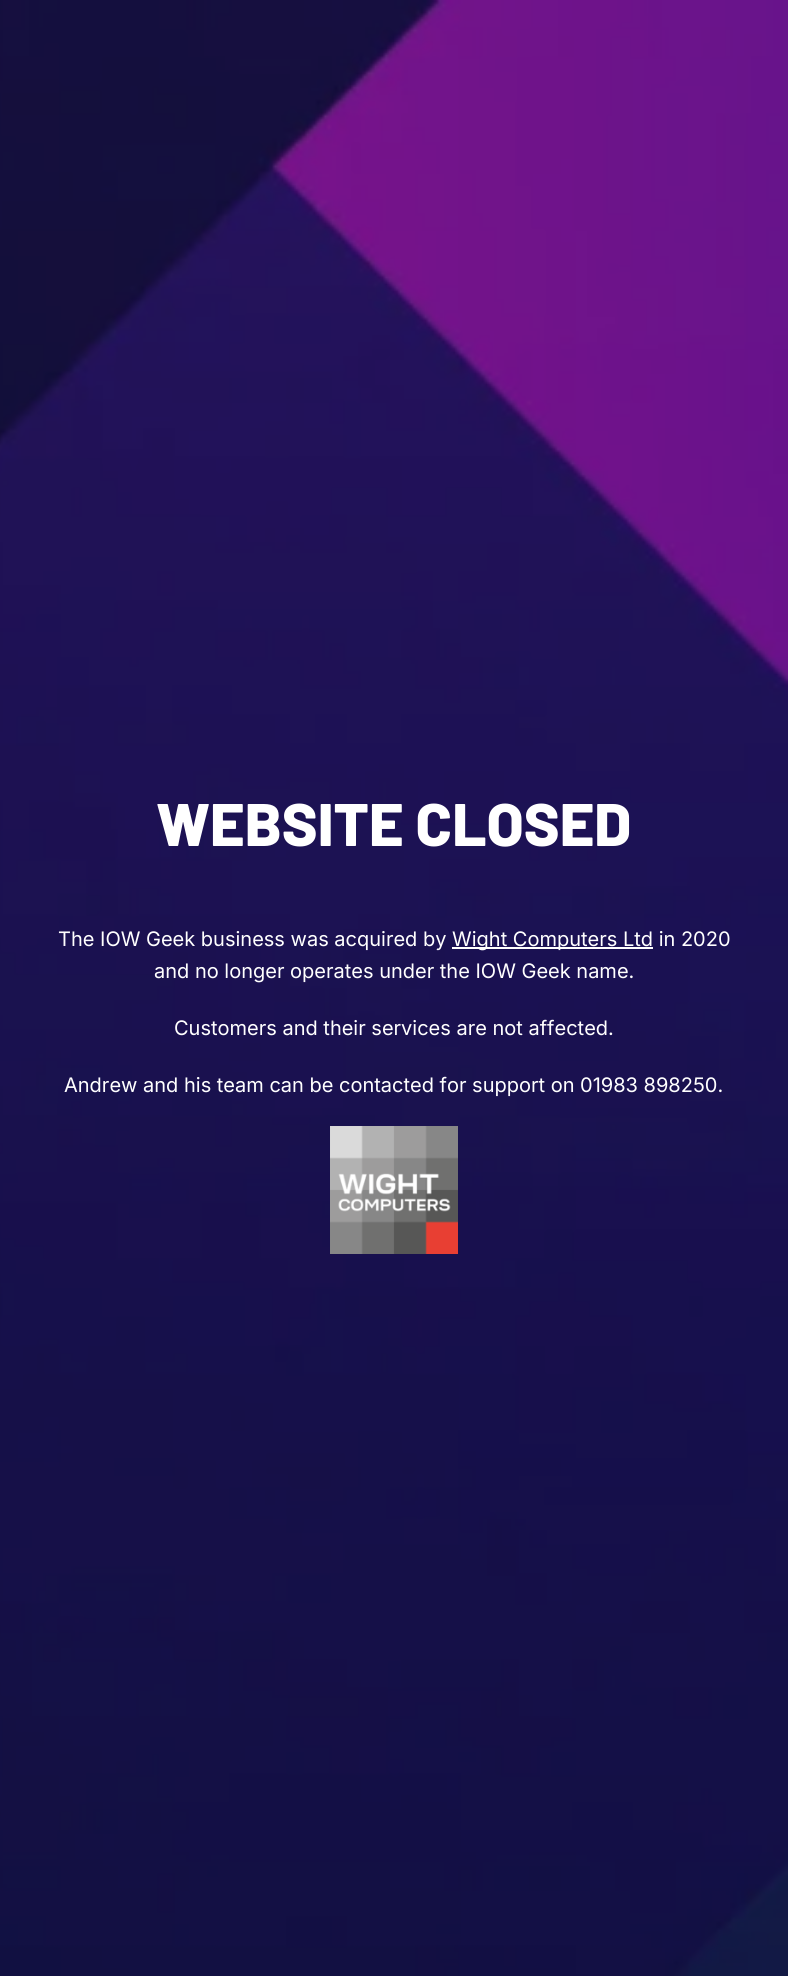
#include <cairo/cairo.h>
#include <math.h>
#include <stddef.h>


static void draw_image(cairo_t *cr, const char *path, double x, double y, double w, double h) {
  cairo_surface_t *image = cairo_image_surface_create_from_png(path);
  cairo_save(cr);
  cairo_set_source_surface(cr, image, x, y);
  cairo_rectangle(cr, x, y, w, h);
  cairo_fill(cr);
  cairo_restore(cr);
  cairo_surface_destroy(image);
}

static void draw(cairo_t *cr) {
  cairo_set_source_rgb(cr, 25 / 255.0, 23 / 255.0, 23 / 255.0);
  cairo_paint(cr);
  draw_image(cr, "images/1.png", 0, 0, 788, 1976);
  cairo_set_source_rgb(cr, 1, 1, 1);
  cairo_rectangle(cr, 452, 947, 201, 2);
  cairo_fill(cr);
  draw_image(cr, "images/2.png", 330, 1126, 128, 128);
  cairo_select_font_face(cr, "Barlow ExtraBold", CAIRO_FONT_SLANT_NORMAL, CAIRO_FONT_WEIGHT_NORMAL);
  cairo_set_font_size(cr, 60);
  cairo_move_to(cr, 156, 846);
  cairo_show_text(cr, "WEBSITE CLOSED");
  cairo_select_font_face(cr, "Inter", CAIRO_FONT_SLANT_NORMAL, CAIRO_FONT_WEIGHT_NORMAL);
  cairo_set_font_size(cr, 20);
  cairo_move_to(cr, 58, 946);
  cairo_show_text(cr, "The IOW Geek business was acquired by");
  cairo_move_to(cr, 452, 946);
  cairo_show_text(cr, "Wight Computers Ltd in 2020");
  cairo_move_to(cr, 154, 978);
  cairo_show_text(cr, "and no longer operates under the IOW Geek name.");
  cairo_move_to(cr, 174, 1035);
  cairo_show_text(cr, "Customers and their services are not affected.");
  cairo_move_to(cr, 64, 1092);
  cairo_show_text(cr, "Andrew and his team can be contacted for support on 01983 898250.");
}

int main(void) {
  cairo_surface_t *surface = cairo_image_surface_create(CAIRO_FORMAT_RGB24, 788, 1976);
  cairo_t *cr = cairo_create(surface);
  cairo_font_options_t *options = cairo_font_options_create();
  cairo_font_options_set_hint_metrics(options, CAIRO_HINT_METRICS_OFF);
  cairo_font_options_set_hint_style(options, CAIRO_HINT_STYLE_NONE);
  cairo_set_font_options(cr, options);
  cairo_set_miter_limit(cr, 4);
  draw(cr);
  cairo_surface_write_to_png(surface, "out.png");
  cairo_font_options_destroy(options);
  cairo_destroy(cr);
  cairo_surface_destroy(surface);
  return 0;
}
